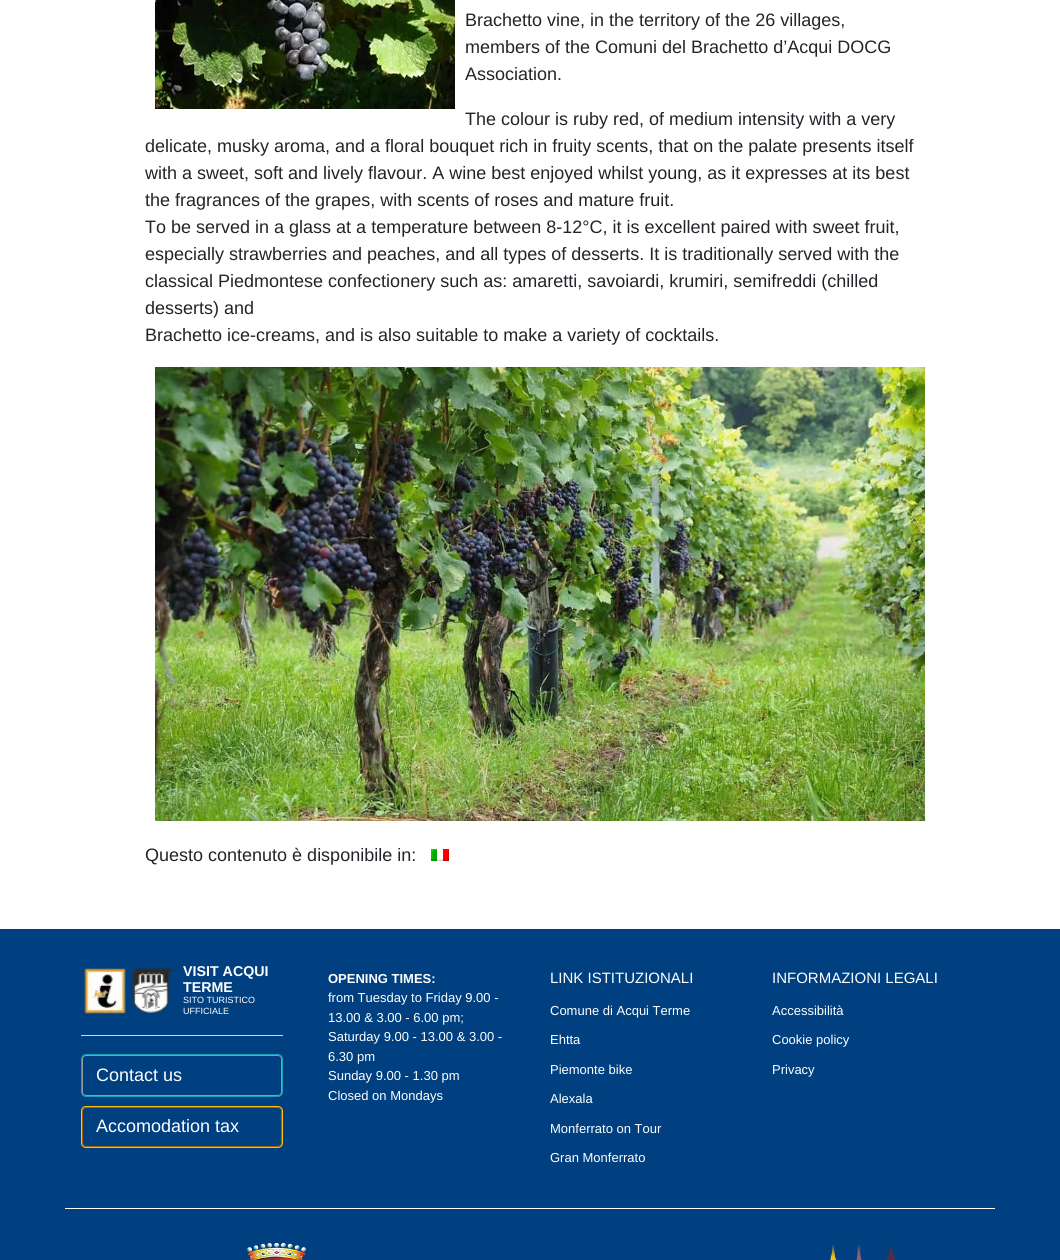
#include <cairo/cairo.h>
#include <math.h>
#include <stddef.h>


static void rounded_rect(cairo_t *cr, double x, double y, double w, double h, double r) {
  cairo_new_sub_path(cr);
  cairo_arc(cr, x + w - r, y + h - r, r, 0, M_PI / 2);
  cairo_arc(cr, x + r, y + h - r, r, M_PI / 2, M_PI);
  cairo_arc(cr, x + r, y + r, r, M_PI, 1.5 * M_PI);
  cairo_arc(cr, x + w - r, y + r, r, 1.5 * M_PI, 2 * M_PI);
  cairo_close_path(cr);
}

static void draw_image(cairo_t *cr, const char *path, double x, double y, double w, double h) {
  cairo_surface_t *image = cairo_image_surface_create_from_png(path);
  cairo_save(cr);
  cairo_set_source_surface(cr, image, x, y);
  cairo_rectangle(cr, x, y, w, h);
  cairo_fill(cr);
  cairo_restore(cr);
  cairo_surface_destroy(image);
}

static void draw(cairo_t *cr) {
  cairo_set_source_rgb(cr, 1, 1, 1);
  cairo_paint(cr);
  draw_image(cr, "images/1.png", 155, 0, 300, 109);
  draw_image(cr, "images/2.png", 155, 367, 770, 454);
  draw_image(cr, "images/3.png", 431, 849, 18, 12);
  cairo_set_source_rgb(cr, 0, 64 / 255.0, 128 / 255.0);
  cairo_rectangle(cr, 0, 929, 1060, 331);
  cairo_fill(cr);
  draw_image(cr, "images/4.png", 84, 968, 90, 46);
  cairo_set_source_rgb(cr, 204 / 255.0, 217 / 255.0, 230 / 255.0);
  cairo_rectangle(cr, 81, 1035, 202, 1);
  cairo_fill(cr);
  rounded_rect(cr, 82.5, 1055.5, 199, 40, 3.5);
  cairo_set_source_rgb(cr, 151 / 255.0, 152 / 255.0, 153 / 255.0);
  cairo_set_line_width(cr, 1);
  cairo_stroke(cr);
  rounded_rect(cr, 81.5, 1054.5, 201, 42, 4.5);
  cairo_set_source_rgb(cr, 23 / 255.0, 162 / 255.0, 184 / 255.0);
  cairo_stroke(cr);
  rounded_rect(cr, 82.5, 1107.5, 199, 39, 3.5);
  cairo_set_source_rgb(cr, 166 / 255.0, 99 / 255.0, 0);
  cairo_stroke(cr);
  rounded_rect(cr, 81.5, 1106.5, 201, 41, 4.5);
  cairo_set_source_rgb(cr, 1, 193 / 255.0, 7 / 255.0);
  cairo_stroke(cr);
  cairo_set_source_rgb(cr, 1, 1, 1);
  cairo_rectangle(cr, 65, 1208, 930, 1);
  cairo_fill(cr);
  draw_image(cr, "images/5.png", 247, 1242, 60, 18);
  draw_image(cr, "images/6.png", 830, 1244, 66, 16);
  cairo_select_font_face(cr, "Liberation Sans", CAIRO_FONT_SLANT_NORMAL, CAIRO_FONT_WEIGHT_NORMAL);
  cairo_set_font_size(cr, 18);
  cairo_set_source_rgb(cr, 33 / 255.0, 37 / 255.0, 41 / 255.0);
  cairo_move_to(cr, 465, 26);
  cairo_show_text(cr, "Brachetto vine, in the territory of the 26 villages,");
  cairo_move_to(cr, 465, 53);
  cairo_show_text(cr, "members of the Comuni del Brachetto d’Acqui DOCG");
  cairo_move_to(cr, 465, 80);
  cairo_show_text(cr, "Association.");
  cairo_move_to(cr, 465, 125);
  cairo_show_text(cr, "The colour is ruby red, of medium intensity with a very");
  cairo_move_to(cr, 145, 152);
  cairo_show_text(cr, "delicate, musky aroma, and a floral bouquet rich in fruity scents, that on the palate presents itself");
  cairo_move_to(cr, 145, 179);
  cairo_show_text(cr, "with a sweet, soft and lively flavour. A wine best enjoyed whilst young, as it expresses at its best");
  cairo_move_to(cr, 145, 206);
  cairo_show_text(cr, "the fragrances of the grapes, with scents of roses and mature fruit.");
  cairo_move_to(cr, 145, 233);
  cairo_show_text(cr, "To be served in a glass at a temperature between 8-12°C, it is excellent paired with sweet fruit,");
  cairo_move_to(cr, 145, 260);
  cairo_show_text(cr, "especially strawberries and peaches, and all types of desserts. It is traditionally served with the");
  cairo_move_to(cr, 145, 287);
  cairo_show_text(cr, "classical Piedmontese confectionery such as: amaretti, savoiardi, krumiri, semifreddi (chilled");
  cairo_move_to(cr, 145, 314);
  cairo_show_text(cr, "desserts) and");
  cairo_move_to(cr, 145, 341);
  cairo_show_text(cr, "Brachetto ice-creams, and is also suitable to make a variety of cocktails.");
  cairo_move_to(cr, 145, 861);
  cairo_show_text(cr, "Questo contenuto è disponibile in:");
  cairo_select_font_face(cr, "Liberation Sans", CAIRO_FONT_SLANT_NORMAL, CAIRO_FONT_WEIGHT_BOLD);
  cairo_set_font_size(cr, 14.25);
  cairo_set_source_rgb(cr, 1, 1, 1);
  cairo_move_to(cr, 183, 976);
  cairo_show_text(cr, "VISIT ACQUI");
  cairo_move_to(cr, 183, 992);
  cairo_show_text(cr, "TERME");
  cairo_select_font_face(cr, "Liberation Sans", CAIRO_FONT_SLANT_NORMAL, CAIRO_FONT_WEIGHT_NORMAL);
  cairo_set_font_size(cr, 9);
  cairo_move_to(cr, 183, 1003);
  cairo_show_text(cr, "SITO TURISTICO");
  cairo_move_to(cr, 183, 1014);
  cairo_show_text(cr, "UFFICIALE");
  cairo_set_font_size(cr, 18);
  cairo_move_to(cr, 96, 1081);
  cairo_show_text(cr, "Contact us");
  cairo_move_to(cr, 96, 1132);
  cairo_show_text(cr, "Accomodation tax");
  cairo_select_font_face(cr, "Liberation Sans", CAIRO_FONT_SLANT_NORMAL, CAIRO_FONT_WEIGHT_BOLD);
  cairo_set_font_size(cr, 13);
  cairo_move_to(cr, 328, 983);
  cairo_show_text(cr, "OPENING TIMES:");
  cairo_select_font_face(cr, "Liberation Sans", CAIRO_FONT_SLANT_NORMAL, CAIRO_FONT_WEIGHT_NORMAL);
  cairo_move_to(cr, 328, 1002);
  cairo_show_text(cr, "from Tuesday to Friday 9.00 -");
  cairo_move_to(cr, 328, 1022);
  cairo_show_text(cr, "13.00 & 3.00 - 6.00 pm;");
  cairo_move_to(cr, 328, 1041);
  cairo_show_text(cr, "Saturday 9.00 - 13.00 & 3.00 -");
  cairo_move_to(cr, 328, 1061);
  cairo_show_text(cr, "6.30 pm");
  cairo_move_to(cr, 328, 1080);
  cairo_show_text(cr, "Sunday 9.00 - 1.30 pm");
  cairo_move_to(cr, 328, 1100);
  cairo_show_text(cr, "Closed on Mondays");
  cairo_set_font_size(cr, 15);
  cairo_move_to(cr, 550, 983);
  cairo_show_text(cr, "LINK ISTITUZIONALI");
  cairo_set_font_size(cr, 13);
  cairo_move_to(cr, 550, 1015);
  cairo_show_text(cr, "Comune di Acqui Terme");
  cairo_move_to(cr, 550, 1044);
  cairo_show_text(cr, "Ehtta");
  cairo_move_to(cr, 550, 1074);
  cairo_show_text(cr, "Piemonte bike");
  cairo_move_to(cr, 550, 1103);
  cairo_show_text(cr, "Alexala");
  cairo_move_to(cr, 550, 1133);
  cairo_show_text(cr, "Monferrato on Tour");
  cairo_move_to(cr, 550, 1162);
  cairo_show_text(cr, "Gran Monferrato");
  cairo_set_font_size(cr, 15);
  cairo_move_to(cr, 772, 983);
  cairo_show_text(cr, "INFORMAZIONI LEGALI");
  cairo_set_font_size(cr, 13);
  cairo_move_to(cr, 772, 1015);
  cairo_show_text(cr, "Accessibilità");
  cairo_move_to(cr, 772, 1044);
  cairo_show_text(cr, "Cookie policy");
  cairo_move_to(cr, 772, 1074);
  cairo_show_text(cr, "Privacy");
}

int main(void) {
  cairo_surface_t *surface = cairo_image_surface_create(CAIRO_FORMAT_RGB24, 1060, 1260);
  cairo_t *cr = cairo_create(surface);
  cairo_font_options_t *options = cairo_font_options_create();
  cairo_font_options_set_hint_metrics(options, CAIRO_HINT_METRICS_OFF);
  cairo_font_options_set_hint_style(options, CAIRO_HINT_STYLE_NONE);
  cairo_set_font_options(cr, options);
  cairo_set_miter_limit(cr, 4);
  draw(cr);
  cairo_surface_write_to_png(surface, "out.png");
  cairo_font_options_destroy(options);
  cairo_destroy(cr);
  cairo_surface_destroy(surface);
  return 0;
}
